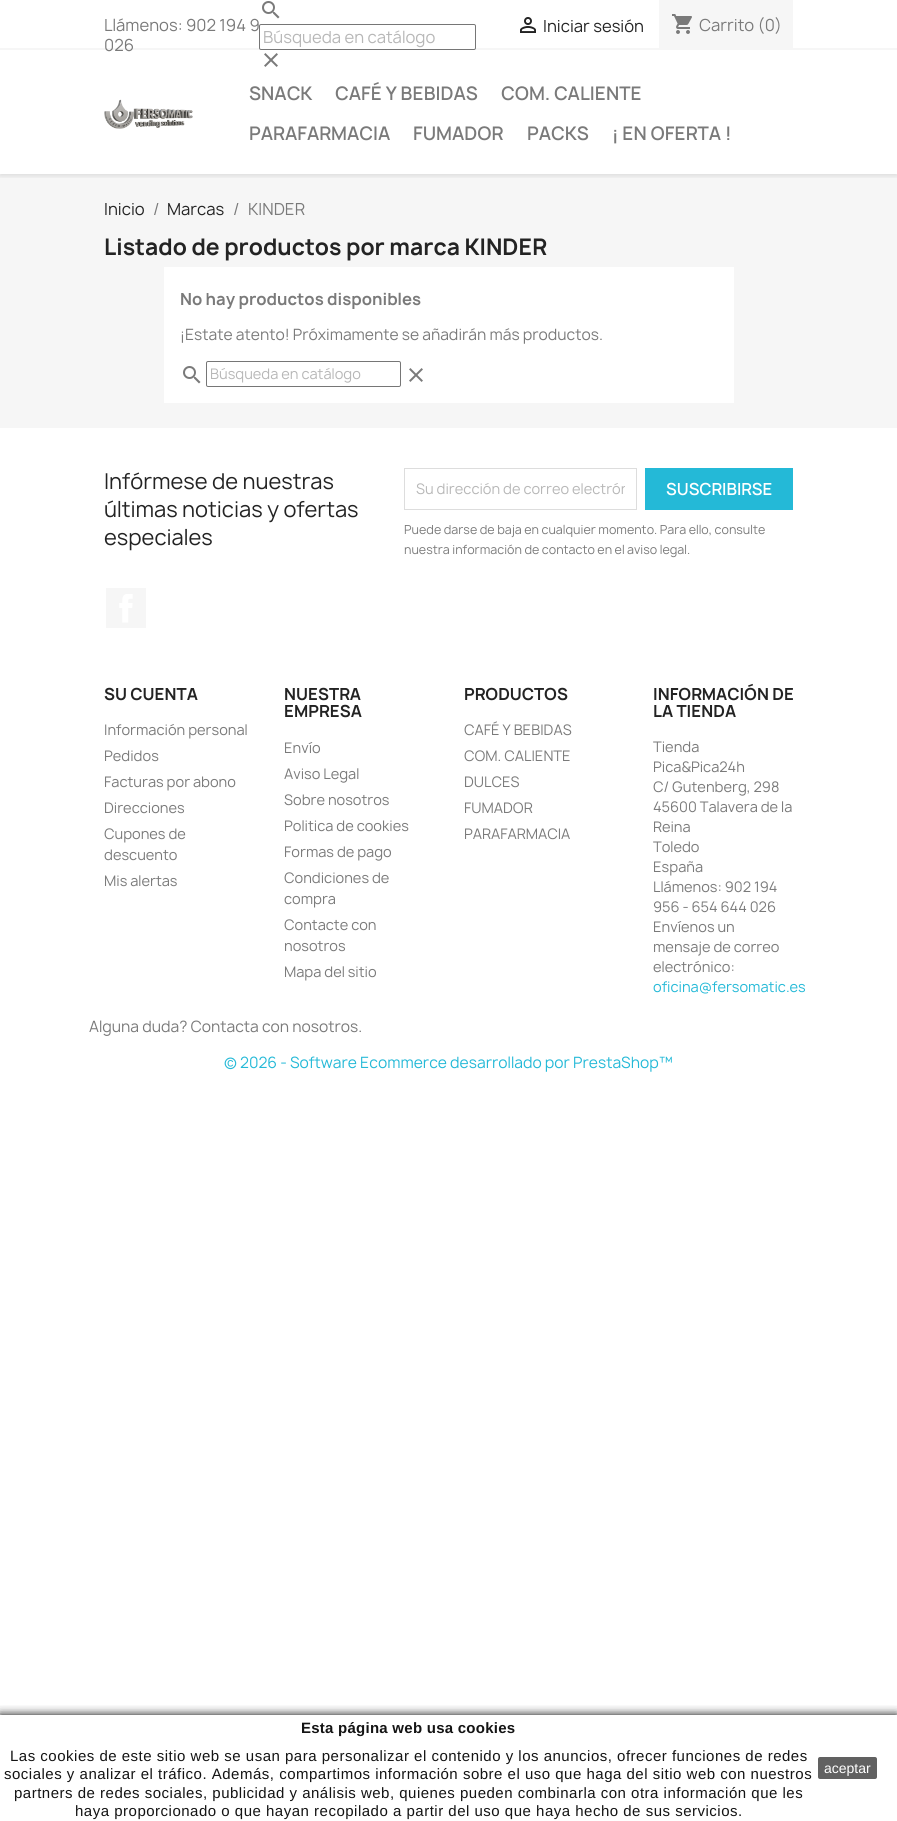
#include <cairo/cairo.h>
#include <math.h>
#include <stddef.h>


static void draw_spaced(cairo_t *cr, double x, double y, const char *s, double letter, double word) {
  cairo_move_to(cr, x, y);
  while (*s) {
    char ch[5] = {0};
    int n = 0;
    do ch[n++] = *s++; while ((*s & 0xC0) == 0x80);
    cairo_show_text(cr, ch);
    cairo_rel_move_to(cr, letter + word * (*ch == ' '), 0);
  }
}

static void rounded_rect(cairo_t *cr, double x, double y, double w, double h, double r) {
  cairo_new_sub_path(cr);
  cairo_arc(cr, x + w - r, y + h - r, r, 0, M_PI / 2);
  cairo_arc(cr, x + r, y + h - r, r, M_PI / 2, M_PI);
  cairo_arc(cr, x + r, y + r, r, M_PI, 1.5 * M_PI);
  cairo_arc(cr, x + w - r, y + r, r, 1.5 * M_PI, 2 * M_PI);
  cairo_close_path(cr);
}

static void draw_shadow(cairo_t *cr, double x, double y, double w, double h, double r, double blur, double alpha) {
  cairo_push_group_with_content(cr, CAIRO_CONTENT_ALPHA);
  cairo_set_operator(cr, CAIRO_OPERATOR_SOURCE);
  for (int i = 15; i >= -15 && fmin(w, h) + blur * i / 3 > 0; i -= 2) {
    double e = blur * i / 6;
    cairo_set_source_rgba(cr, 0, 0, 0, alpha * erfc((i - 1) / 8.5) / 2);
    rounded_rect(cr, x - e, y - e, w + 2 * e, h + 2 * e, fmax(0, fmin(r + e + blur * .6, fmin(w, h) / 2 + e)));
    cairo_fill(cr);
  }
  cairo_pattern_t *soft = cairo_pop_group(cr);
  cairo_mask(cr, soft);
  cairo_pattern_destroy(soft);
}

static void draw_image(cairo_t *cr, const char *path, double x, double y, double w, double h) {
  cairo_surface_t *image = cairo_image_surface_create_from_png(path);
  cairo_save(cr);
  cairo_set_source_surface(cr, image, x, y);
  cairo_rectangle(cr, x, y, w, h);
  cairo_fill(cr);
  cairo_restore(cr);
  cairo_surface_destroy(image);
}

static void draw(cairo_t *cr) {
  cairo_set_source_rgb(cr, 1, 1, 1);
  cairo_paint(cr);
  cairo_set_source_rgb(cr, 246 / 255.0, 246 / 255.0, 246 / 255.0);
  cairo_rectangle(cr, 0, 174, 897, 254);
  cairo_fill(cr);
  cairo_save(cr);
  cairo_rectangle(cr, 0, 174, 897, 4);
  cairo_clip(cr);
  cairo_set_source_rgb(cr, 0, 0, 0);
  draw_shadow(cr, 0, 2, 897, 174, 0, 2.5, 0.11);
  cairo_restore(cr);
  cairo_rectangle(cr, 0, 48, 897, 2);
  cairo_fill(cr);
  draw_image(cr, "images/1.png", 520, 17, 16, 16);
  cairo_rectangle(cr, 659, 0, 134, 48);
  cairo_fill(cr);
  draw_image(cr, "images/2.png", 672, 14, 20, 20);
  draw_image(cr, "images/3.png", 262, 1, 18, 18);
  cairo_set_source_rgb(cr, 1, 1, 1);
  rounded_rect(cr, 259.5, 24.5, 216, 25, 1.5);
  cairo_fill_preserve(cr);
  cairo_set_source_rgb(cr, 118 / 255.0, 118 / 255.0, 118 / 255.0);
  cairo_set_line_width(cr, 1);
  cairo_stroke(cr);
  draw_image(cr, "images/4.png", 264, 53, 14, 14);
  draw_image(cr, "images/5.png", 104, 99, 89, 30);
  cairo_set_source_rgb(cr, 1, 1, 1);
  cairo_rectangle(cr, 164, 267, 570, 136);
  cairo_fill(cr);
  draw_image(cr, "images/6.png", 183, 366, 18, 18);
  rounded_rect(cr, 206.5, 361.5, 194, 25, 1.5);
  cairo_set_source_rgb(cr, 118 / 255.0, 118 / 255.0, 118 / 255.0);
  cairo_stroke(cr);
  draw_image(cr, "images/4.png", 409, 368, 14, 14);
  cairo_rectangle(cr, 404.5, 468.5, 232, 41);
  cairo_set_source_rgb(cr, 221 / 255.0, 221 / 255.0, 221 / 255.0);
  cairo_stroke(cr);
  cairo_set_source_rgb(cr, 36 / 255.0, 185 / 255.0, 215 / 255.0);
  cairo_rectangle(cr, 645, 468, 148, 42);
  cairo_fill(cr);
  cairo_set_source_rgb(cr, 246 / 255.0, 246 / 255.0, 246 / 255.0);
  cairo_rectangle(cr, 106, 588, 40, 40);
  cairo_fill(cr);
  draw_image(cr, "images/7.png", 119, 594, 14, 29);
  cairo_save(cr);
  cairo_rectangle(cr, 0, 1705, 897, 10);
  cairo_clip(cr);
  cairo_set_source_rgb(cr, 0, 0, 0);
  draw_shadow(cr, 0, 1715, 897, 106, 0, 5, 1);
  cairo_restore(cr);
  cairo_set_source_rgb(cr, 97 / 255.0, 97 / 255.0, 97 / 255.0);
  rounded_rect(cr, 818, 1757, 59, 22, 2);
  cairo_fill(cr);
  cairo_select_font_face(cr, "Manrope", CAIRO_FONT_SLANT_NORMAL, CAIRO_FONT_WEIGHT_NORMAL);
  cairo_set_font_size(cr, 16);
  cairo_set_source_rgb(cr, 122 / 255.0, 122 / 255.0, 122 / 255.0);
  cairo_move_to(cr, 104, 31);
  cairo_show_text(cr, "Llámenos: 902 194 9");
  cairo_move_to(cr, 104, 51);
  cairo_show_text(cr, "026");
  cairo_set_source_rgb(cr, 35 / 255.0, 35 / 255.0, 35 / 255.0);
  cairo_move_to(cr, 543, 32);
  cairo_show_text(cr, "Iniciar sesión");
  cairo_set_source_rgb(cr, 122 / 255.0, 122 / 255.0, 122 / 255.0);
  cairo_move_to(cr, 699, 31);
  cairo_show_text(cr, "Carrito (0)");
  cairo_set_source_rgb(cr, 183 / 255.0, 183 / 255.0, 183 / 255.0);
  cairo_move_to(cr, 263, 43);
  cairo_show_text(cr, "Búsqueda en catálogo");
  cairo_select_font_face(cr, "Manrope SemiBold", CAIRO_FONT_SLANT_NORMAL, CAIRO_FONT_WEIGHT_NORMAL);
  cairo_set_font_size(cr, 18);
  cairo_set_source_rgb(cr, 122 / 255.0, 122 / 255.0, 122 / 255.0);
  cairo_move_to(cr, 249, 100);
  cairo_show_text(cr, "SNACK");
  cairo_move_to(cr, 335, 100);
  cairo_show_text(cr, "CAFÉ Y BEBIDAS");
  cairo_move_to(cr, 501, 100);
  cairo_show_text(cr, "COM. CALIENTE");
  cairo_move_to(cr, 249, 140);
  cairo_show_text(cr, "PARAFARMACIA");
  cairo_move_to(cr, 413, 140);
  cairo_show_text(cr, "FUMADOR");
  cairo_move_to(cr, 527, 140);
  cairo_show_text(cr, "PACKS");
  cairo_move_to(cr, 612, 140);
  cairo_show_text(cr, "¡ EN OFERTA !");
  cairo_select_font_face(cr, "Manrope", CAIRO_FONT_SLANT_NORMAL, CAIRO_FONT_WEIGHT_NORMAL);
  cairo_set_font_size(cr, 16);
  cairo_set_source_rgb(cr, 35 / 255.0, 35 / 255.0, 35 / 255.0);
  cairo_move_to(cr, 104, 215);
  cairo_show_text(cr, "Inicio");
  cairo_set_source_rgb(cr, 122 / 255.0, 122 / 255.0, 122 / 255.0);
  cairo_move_to(cr, 153, 215);
  cairo_show_text(cr, "/");
  cairo_set_source_rgb(cr, 35 / 255.0, 35 / 255.0, 35 / 255.0);
  cairo_move_to(cr, 167, 215);
  cairo_show_text(cr, "Marcas");
  cairo_set_source_rgb(cr, 122 / 255.0, 122 / 255.0, 122 / 255.0);
  cairo_move_to(cr, 233, 215);
  cairo_show_text(cr, "/");
  cairo_move_to(cr, 248, 215);
  cairo_show_text(cr, "KINDER");
  cairo_select_font_face(cr, "Manrope", CAIRO_FONT_SLANT_NORMAL, CAIRO_FONT_WEIGHT_BOLD);
  cairo_set_font_size(cr, 22);
  cairo_set_source_rgb(cr, 35 / 255.0, 35 / 255.0, 35 / 255.0);
  cairo_move_to(cr, 104, 255);
  cairo_show_text(cr, "Listado de productos por marca KINDER");
  cairo_set_font_size(cr, 16);
  cairo_set_source_rgb(cr, 122 / 255.0, 122 / 255.0, 122 / 255.0);
  cairo_move_to(cr, 180, 305);
  cairo_show_text(cr, "No hay productos disponibles");
  cairo_select_font_face(cr, "Manrope", CAIRO_FONT_SLANT_NORMAL, CAIRO_FONT_WEIGHT_NORMAL);
  cairo_set_font_size(cr, 15);
  cairo_move_to(cr, 180, 340);
  cairo_show_text(cr, "¡Estate atento! Próximamente se añadirán más productos.");
  cairo_set_font_size(cr, 14);
  cairo_set_source_rgb(cr, 183 / 255.0, 183 / 255.0, 183 / 255.0);
  cairo_move_to(cr, 210, 379);
  cairo_show_text(cr, "Búsqueda en catálogo");
  cairo_set_font_size(cr, 21);
  cairo_set_source_rgb(cr, 35 / 255.0, 35 / 255.0, 35 / 255.0);
  cairo_move_to(cr, 104, 489);
  cairo_show_text(cr, "Infórmese de nuestras");
  cairo_move_to(cr, 104, 517);
  cairo_show_text(cr, "últimas noticias y ofertas");
  cairo_move_to(cr, 104, 545);
  cairo_show_text(cr, "especiales");
  cairo_save(cr);
  cairo_rectangle(cr, 416, 477, 209, 23);
  cairo_clip(cr);
  cairo_set_font_size(cr, 14);
  cairo_set_source_rgb(cr, 183 / 255.0, 183 / 255.0, 183 / 255.0);
  cairo_move_to(cr, 416, 494);
  cairo_show_text(cr, "Su dirección de correo electrón");
  cairo_restore(cr);
  cairo_select_font_face(cr, "Manrope SemiBold", CAIRO_FONT_SLANT_NORMAL, CAIRO_FONT_WEIGHT_NORMAL);
  cairo_set_font_size(cr, 16);
  cairo_set_source_rgb(cr, 1, 1, 1);
  cairo_move_to(cr, 666, 495);
  cairo_show_text(cr, "SUSCRIBIRSE");
  cairo_select_font_face(cr, "Manrope", CAIRO_FONT_SLANT_NORMAL, CAIRO_FONT_WEIGHT_NORMAL);
  cairo_set_font_size(cr, 12);
  cairo_set_source_rgb(cr, 122 / 255.0, 122 / 255.0, 122 / 255.0);
  cairo_move_to(cr, 404, 534);
  cairo_show_text(cr, "Puede darse de baja en cualquier momento. Para ello, consulte");
  cairo_move_to(cr, 404, 554);
  cairo_show_text(cr, "nuestra información de contacto en el aviso legal.");
  cairo_select_font_face(cr, "Manrope", CAIRO_FONT_SLANT_NORMAL, CAIRO_FONT_WEIGHT_BOLD);
  cairo_set_font_size(cr, 16);
  cairo_set_source_rgb(cr, 35 / 255.0, 35 / 255.0, 35 / 255.0);
  cairo_move_to(cr, 104, 700);
  cairo_show_text(cr, "SU CUENTA");
  cairo_select_font_face(cr, "Manrope", CAIRO_FONT_SLANT_NORMAL, CAIRO_FONT_WEIGHT_NORMAL);
  cairo_set_font_size(cr, 14);
  cairo_set_source_rgb(cr, 122 / 255.0, 122 / 255.0, 122 / 255.0);
  cairo_move_to(cr, 104, 735);
  cairo_show_text(cr, "Información personal");
  cairo_move_to(cr, 104, 761);
  cairo_show_text(cr, "Pedidos");
  cairo_move_to(cr, 104, 787);
  cairo_show_text(cr, "Facturas por abono");
  cairo_move_to(cr, 104, 813);
  cairo_show_text(cr, "Direcciones");
  cairo_move_to(cr, 104, 839);
  cairo_show_text(cr, "Cupones de");
  cairo_move_to(cr, 104, 860);
  cairo_show_text(cr, "descuento");
  cairo_move_to(cr, 104, 886);
  cairo_show_text(cr, "Mis alertas");
  cairo_select_font_face(cr, "Manrope", CAIRO_FONT_SLANT_NORMAL, CAIRO_FONT_WEIGHT_BOLD);
  cairo_set_font_size(cr, 16);
  cairo_set_source_rgb(cr, 35 / 255.0, 35 / 255.0, 35 / 255.0);
  cairo_move_to(cr, 284, 700);
  cairo_show_text(cr, "NUESTRA");
  cairo_move_to(cr, 284, 717);
  cairo_show_text(cr, "EMPRESA");
  cairo_select_font_face(cr, "Manrope", CAIRO_FONT_SLANT_NORMAL, CAIRO_FONT_WEIGHT_NORMAL);
  cairo_set_font_size(cr, 14);
  cairo_set_source_rgb(cr, 122 / 255.0, 122 / 255.0, 122 / 255.0);
  cairo_move_to(cr, 284, 753);
  cairo_show_text(cr, "Envío");
  cairo_move_to(cr, 284, 779);
  cairo_show_text(cr, "Aviso Legal");
  cairo_move_to(cr, 284, 805);
  cairo_show_text(cr, "Sobre nosotros");
  cairo_move_to(cr, 284, 831);
  cairo_show_text(cr, "Politica de cookies");
  cairo_move_to(cr, 284, 857);
  cairo_show_text(cr, "Formas de pago");
  cairo_move_to(cr, 284, 883);
  cairo_show_text(cr, "Condiciones de");
  cairo_move_to(cr, 284, 904);
  cairo_show_text(cr, "compra");
  cairo_move_to(cr, 284, 930);
  cairo_show_text(cr, "Contacte con");
  cairo_move_to(cr, 284, 951);
  cairo_show_text(cr, "nosotros");
  cairo_move_to(cr, 284, 977);
  cairo_show_text(cr, "Mapa del sitio");
  cairo_select_font_face(cr, "Manrope", CAIRO_FONT_SLANT_NORMAL, CAIRO_FONT_WEIGHT_BOLD);
  cairo_set_font_size(cr, 16);
  cairo_set_source_rgb(cr, 35 / 255.0, 35 / 255.0, 35 / 255.0);
  cairo_move_to(cr, 464, 700);
  cairo_show_text(cr, "PRODUCTOS");
  cairo_select_font_face(cr, "Manrope", CAIRO_FONT_SLANT_NORMAL, CAIRO_FONT_WEIGHT_NORMAL);
  cairo_set_font_size(cr, 14);
  cairo_set_source_rgb(cr, 122 / 255.0, 122 / 255.0, 122 / 255.0);
  cairo_move_to(cr, 464, 735);
  cairo_show_text(cr, "CAFÉ Y BEBIDAS");
  cairo_move_to(cr, 464, 761);
  cairo_show_text(cr, "COM. CALIENTE");
  cairo_move_to(cr, 464, 787);
  cairo_show_text(cr, "DULCES");
  cairo_move_to(cr, 464, 813);
  cairo_show_text(cr, "FUMADOR");
  cairo_move_to(cr, 464, 839);
  cairo_show_text(cr, "PARAFARMACIA");
  cairo_select_font_face(cr, "Manrope", CAIRO_FONT_SLANT_NORMAL, CAIRO_FONT_WEIGHT_BOLD);
  cairo_set_font_size(cr, 16);
  cairo_set_source_rgb(cr, 35 / 255.0, 35 / 255.0, 35 / 255.0);
  cairo_move_to(cr, 653, 700);
  cairo_show_text(cr, "INFORMACIÓN DE");
  cairo_move_to(cr, 653, 717);
  cairo_show_text(cr, "LA TIENDA");
  cairo_select_font_face(cr, "Manrope", CAIRO_FONT_SLANT_NORMAL, CAIRO_FONT_WEIGHT_NORMAL);
  cairo_set_font_size(cr, 14);
  cairo_set_source_rgb(cr, 122 / 255.0, 122 / 255.0, 122 / 255.0);
  cairo_move_to(cr, 653, 752);
  cairo_show_text(cr, "Tienda");
  cairo_move_to(cr, 653, 772);
  cairo_show_text(cr, "Pica&Pica24h");
  cairo_move_to(cr, 653, 792);
  cairo_show_text(cr, "C/ Gutenberg, 298");
  cairo_move_to(cr, 653, 812);
  cairo_show_text(cr, "45600 Talavera de la");
  cairo_move_to(cr, 653, 832);
  cairo_show_text(cr, "Reina");
  cairo_move_to(cr, 653, 852);
  cairo_show_text(cr, "Toledo");
  cairo_move_to(cr, 653, 872);
  cairo_show_text(cr, "España");
  cairo_move_to(cr, 653, 892);
  cairo_show_text(cr, "Llámenos: 902 194");
  cairo_move_to(cr, 653, 912);
  cairo_show_text(cr, "956 - 654 644 026");
  cairo_move_to(cr, 653, 932);
  cairo_show_text(cr, "Envíenos un");
  cairo_move_to(cr, 653, 952);
  cairo_show_text(cr, "mensaje de correo");
  cairo_move_to(cr, 653, 972);
  cairo_show_text(cr, "electrónico:");
  cairo_set_source_rgb(cr, 36 / 255.0, 185 / 255.0, 215 / 255.0);
  cairo_move_to(cr, 653, 992);
  cairo_show_text(cr, "oficina@fersomatic.es");
  cairo_set_font_size(cr, 15);
  cairo_set_source_rgb(cr, 122 / 255.0, 122 / 255.0, 122 / 255.0);
  cairo_move_to(cr, 89, 1032);
  cairo_show_text(cr, "Alguna duda? Contacta con nosotros.");
  cairo_select_font_face(cr, "Liberation Sans", CAIRO_FONT_SLANT_NORMAL, CAIRO_FONT_WEIGHT_BOLD);
  cairo_set_source_rgb(cr, 20 / 255.0, 20 / 255.0, 20 / 255.0);
  draw_spaced(cr, 301, 1733, "Esta página web usa cookies", 0.25, 0);
  cairo_select_font_face(cr, "Liberation Sans", CAIRO_FONT_SLANT_NORMAL, CAIRO_FONT_WEIGHT_NORMAL);
  draw_spaced(cr, 10, 1761, "Las cookies de este sitio web se usan para personalizar el contenido y los anuncios, ofrecer funciones de redes", 0.5, 0);
  draw_spaced(cr, 4, 1779, "sociales y analizar el tráfico. Además, compartimos información sobre el uso que haga del sitio web con nuestros", 0.5, 0);
  draw_spaced(cr, 14, 1798, "partners de redes sociales, publicidad y análisis web, quienes pueden combinarla con otra información que les", 0.5, 0);
  draw_spaced(cr, 75, 1816, "haya proporcionado o que hayan recopilado a partir del uso que haya hecho de sus servicios.", 0.5, 0);
  cairo_set_font_size(cr, 14);
  cairo_set_source_rgb(cr, 1, 1, 1);
  cairo_move_to(cr, 824, 1773);
  cairo_show_text(cr, "aceptar");
  cairo_select_font_face(cr, "Manrope", CAIRO_FONT_SLANT_NORMAL, CAIRO_FONT_WEIGHT_NORMAL);
  cairo_set_font_size(cr, 15);
  cairo_set_source_rgb(cr, 36 / 255.0, 185 / 255.0, 215 / 255.0);
  cairo_move_to(cr, 224, 1068);
  cairo_show_text(cr, "© 2026 - Software Ecommerce desarrollado por PrestaShop™");
}

int main(void) {
  cairo_surface_t *surface = cairo_image_surface_create(CAIRO_FORMAT_RGB24, 897, 1821);
  cairo_t *cr = cairo_create(surface);
  cairo_font_options_t *options = cairo_font_options_create();
  cairo_font_options_set_hint_metrics(options, CAIRO_HINT_METRICS_OFF);
  cairo_font_options_set_hint_style(options, CAIRO_HINT_STYLE_NONE);
  cairo_set_font_options(cr, options);
  cairo_set_miter_limit(cr, 4);
  draw(cr);
  cairo_surface_write_to_png(surface, "out.png");
  cairo_font_options_destroy(options);
  cairo_destroy(cr);
  cairo_surface_destroy(surface);
  return 0;
}
